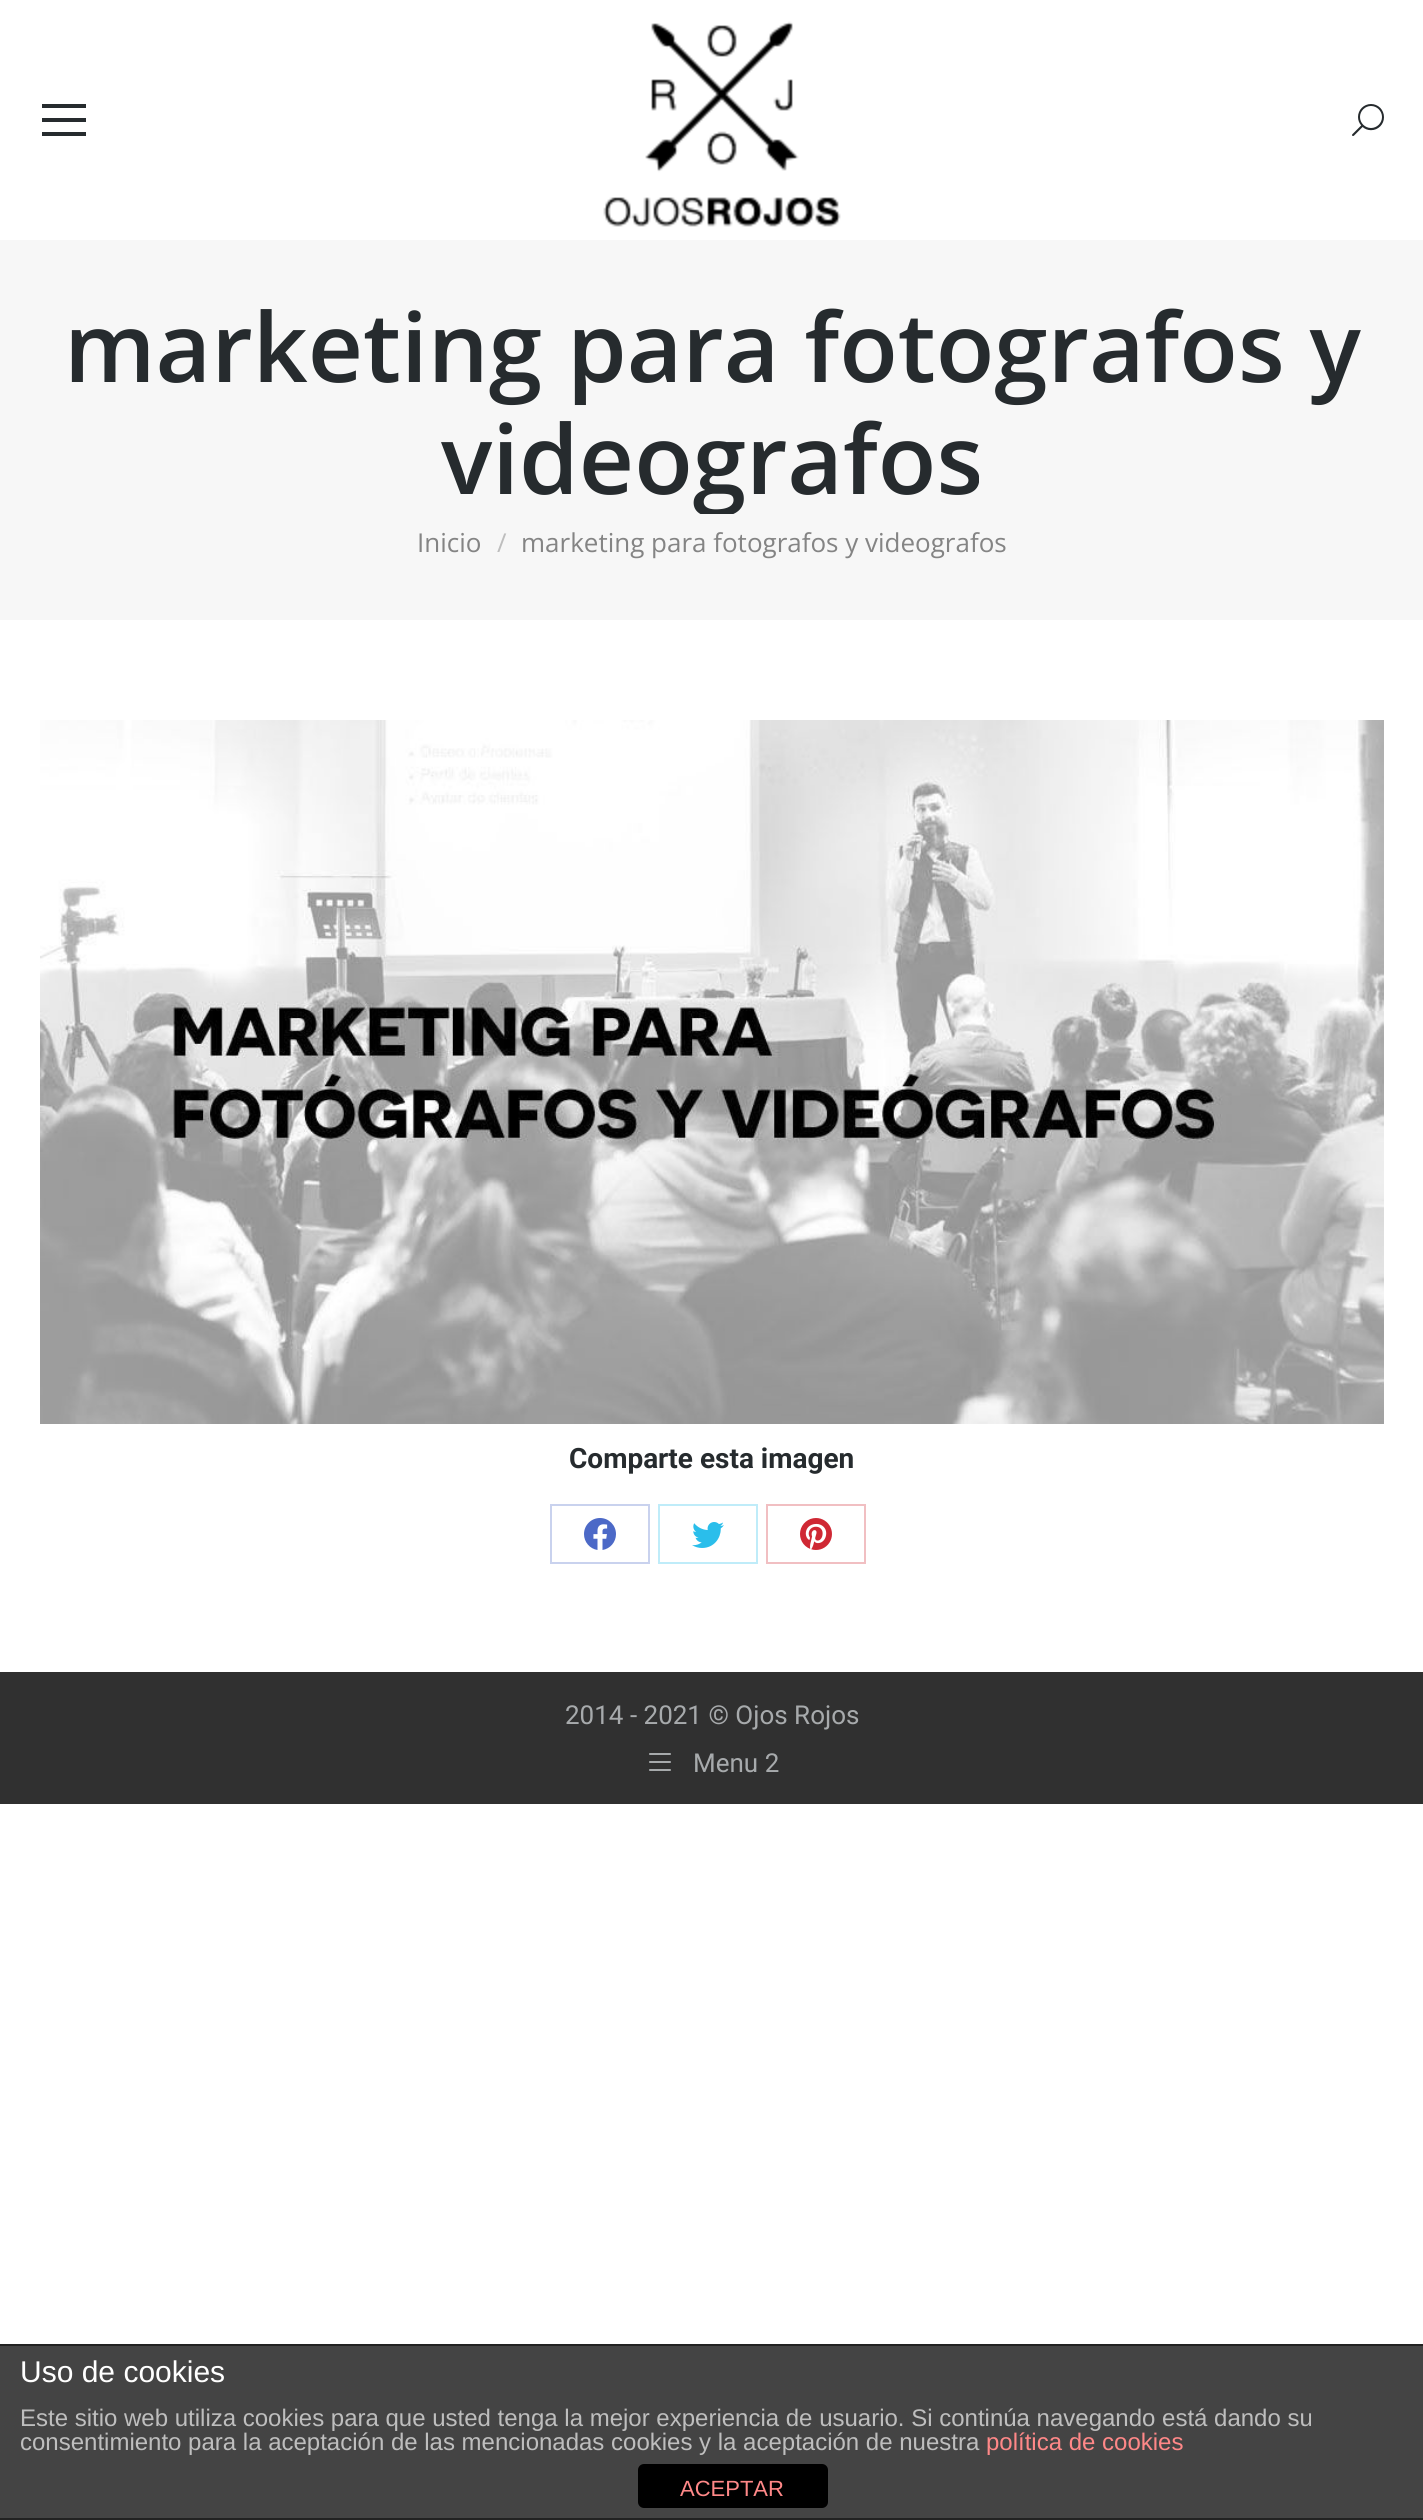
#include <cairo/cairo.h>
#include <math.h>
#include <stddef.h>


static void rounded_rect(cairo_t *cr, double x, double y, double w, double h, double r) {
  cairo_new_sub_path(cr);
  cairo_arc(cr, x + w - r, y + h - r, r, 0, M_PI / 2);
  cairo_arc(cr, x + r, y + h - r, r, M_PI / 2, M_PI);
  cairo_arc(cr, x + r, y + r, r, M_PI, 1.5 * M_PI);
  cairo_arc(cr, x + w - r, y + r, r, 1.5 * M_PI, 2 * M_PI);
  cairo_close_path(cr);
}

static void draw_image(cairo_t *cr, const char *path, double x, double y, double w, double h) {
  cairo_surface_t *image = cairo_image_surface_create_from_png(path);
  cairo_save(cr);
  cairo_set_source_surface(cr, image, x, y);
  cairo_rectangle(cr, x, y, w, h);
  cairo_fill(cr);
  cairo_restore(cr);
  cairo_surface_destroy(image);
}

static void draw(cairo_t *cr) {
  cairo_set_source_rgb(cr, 1, 1, 1);
  cairo_paint(cr);
  cairo_set_source_rgb(cr, 38 / 255.0, 43 / 255.0, 46 / 255.0);
  cairo_rectangle(cr, 42, 104, 44, 4);
  cairo_fill(cr);
  cairo_rectangle(cr, 42, 118, 44, 4);
  cairo_fill(cr);
  cairo_rectangle(cr, 42, 132, 44, 4);
  cairo_fill(cr);
  draw_image(cr, "images/1.png", 603, 21, 238, 206);
  draw_image(cr, "images/2.png", 1352, 104, 32, 32);
  cairo_set_source_rgb(cr, 247 / 255.0, 247 / 255.0, 247 / 255.0);
  cairo_rectangle(cr, 0, 240, 1423, 380);
  cairo_fill(cr);
  draw_image(cr, "images/3.png", 40, 720, 1344, 704);
  cairo_rectangle(cr, 551, 1505, 98, 58);
  cairo_set_source_rgb(cr, 201 / 255.0, 210 / 255.0, 238 / 255.0);
  cairo_stroke(cr);
  draw_image(cr, "images/4.png", 584, 1518, 32, 32);
  cairo_rectangle(cr, 659, 1505, 98, 58);
  cairo_set_source_rgb(cr, 191 / 255.0, 236 / 255.0, 249 / 255.0);
  cairo_stroke(cr);
  draw_image(cr, "images/5.png", 692, 1522, 32, 26);
  cairo_rectangle(cr, 767, 1505, 98, 58);
  cairo_set_source_rgb(cr, 241 / 255.0, 191 / 255.0, 194 / 255.0);
  cairo_stroke(cr);
  draw_image(cr, "images/6.png", 800, 1518, 32, 32);
  cairo_set_source_rgb(cr, 48 / 255.0, 48 / 255.0, 48 / 255.0);
  cairo_rectangle(cr, 0, 1672, 1423, 132);
  cairo_fill(cr);
  draw_image(cr, "images/7.png", 649, 1753, 22, 18);
  cairo_set_source_rgb(cr, 68 / 255.0, 68 / 255.0, 68 / 255.0);
  cairo_rectangle(cr, 0, 2346, 1423, 172);
  cairo_fill(cr);
  cairo_set_source_rgb(cr, 34 / 255.0, 34 / 255.0, 34 / 255.0);
  cairo_rectangle(cr, 0, 2344, 1423, 2);
  cairo_fill(cr);
  cairo_rectangle(cr, 0, 2518, 1423, 2);
  cairo_fill(cr);
  cairo_set_source_rgb(cr, 0, 0, 0);
  rounded_rect(cr, 638, 2464, 190, 44, 6);
  cairo_fill(cr);
  cairo_select_font_face(cr, "Open Sans SemiBold", CAIRO_FONT_SLANT_NORMAL, CAIRO_FONT_WEIGHT_NORMAL);
  cairo_set_font_size(cr, 96);
  cairo_set_source_rgb(cr, 38 / 255.0, 43 / 255.0, 46 / 255.0);
  cairo_move_to(cr, 64, 382);
  cairo_show_text(cr, "marketing para fotografos y");
  cairo_save(cr);
  cairo_rectangle(cr, 40, 290, 1344, 224);
  cairo_clip(cr);
  cairo_move_to(cr, 441, 494);
  cairo_show_text(cr, "videografos");
  cairo_restore(cr);
  cairo_select_font_face(cr, "Open Sans", CAIRO_FONT_SLANT_NORMAL, CAIRO_FONT_WEIGHT_NORMAL);
  cairo_set_font_size(cr, 26);
  cairo_set_source_rgb(cr, 132 / 255.0, 132 / 255.0, 132 / 255.0);
  cairo_move_to(cr, 417, 552);
  cairo_show_text(cr, "Inicio");
  cairo_set_source_rgb(cr, 190 / 255.0, 190 / 255.0, 190 / 255.0);
  cairo_move_to(cr, 497, 552);
  cairo_show_text(cr, "/");
  cairo_set_source_rgb(cr, 132 / 255.0, 132 / 255.0, 132 / 255.0);
  cairo_move_to(cr, 521, 552);
  cairo_show_text(cr, "marketing para fotografos y videografos");
  cairo_select_font_face(cr, "Roboto", CAIRO_FONT_SLANT_NORMAL, CAIRO_FONT_WEIGHT_BOLD);
  cairo_set_font_size(cr, 28);
  cairo_set_source_rgb(cr, 38 / 255.0, 43 / 255.0, 46 / 255.0);
  cairo_move_to(cr, 569, 1468);
  cairo_show_text(cr, "Comparte esta imagen");
  cairo_select_font_face(cr, "Roboto", CAIRO_FONT_SLANT_NORMAL, CAIRO_FONT_WEIGHT_NORMAL);
  cairo_set_font_size(cr, 26);
  cairo_set_source_rgb(cr, 167 / 255.0, 170 / 255.0, 172 / 255.0);
  cairo_move_to(cr, 565, 1724);
  cairo_show_text(cr, "2014 - 2021 © Ojos Rojos");
  cairo_move_to(cr, 693, 1772);
  cairo_show_text(cr, "Menu 2");
  cairo_select_font_face(cr, "Liberation Sans", CAIRO_FONT_SLANT_NORMAL, CAIRO_FONT_WEIGHT_NORMAL);
  cairo_set_font_size(cr, 30);
  cairo_set_source_rgb(cr, 1, 1, 1);
  cairo_move_to(cr, 20, 2382);
  cairo_show_text(cr, "Uso de cookies");
  cairo_set_font_size(cr, 24);
  cairo_set_source_rgb(cr, 190 / 255.0, 190 / 255.0, 190 / 255.0);
  cairo_move_to(cr, 20, 2426);
  cairo_show_text(cr, "Este sitio web utiliza cookies para que usted tenga la mejor experiencia de usuario. Si continúa navegando está dando su");
  cairo_move_to(cr, 20, 2450);
  cairo_show_text(cr, "consentimiento para la aceptación de las mencionadas cookies y la aceptación de nuestra");
  cairo_set_source_rgb(cr, 1, 136 / 255.0, 136 / 255.0);
  cairo_move_to(cr, 986, 2450);
  cairo_show_text(cr, "política de cookies");
  cairo_set_font_size(cr, 22);
  cairo_move_to(cr, 680, 2496);
  cairo_show_text(cr, "ACEPTAR");
}

int main(void) {
  cairo_surface_t *surface = cairo_image_surface_create(CAIRO_FORMAT_RGB24, 1423, 2520);
  cairo_t *cr = cairo_create(surface);
  cairo_font_options_t *options = cairo_font_options_create();
  cairo_font_options_set_hint_metrics(options, CAIRO_HINT_METRICS_OFF);
  cairo_font_options_set_hint_style(options, CAIRO_HINT_STYLE_NONE);
  cairo_set_font_options(cr, options);
  cairo_set_miter_limit(cr, 4);
  draw(cr);
  cairo_surface_write_to_png(surface, "out.png");
  cairo_font_options_destroy(options);
  cairo_destroy(cr);
  cairo_surface_destroy(surface);
  return 0;
}
